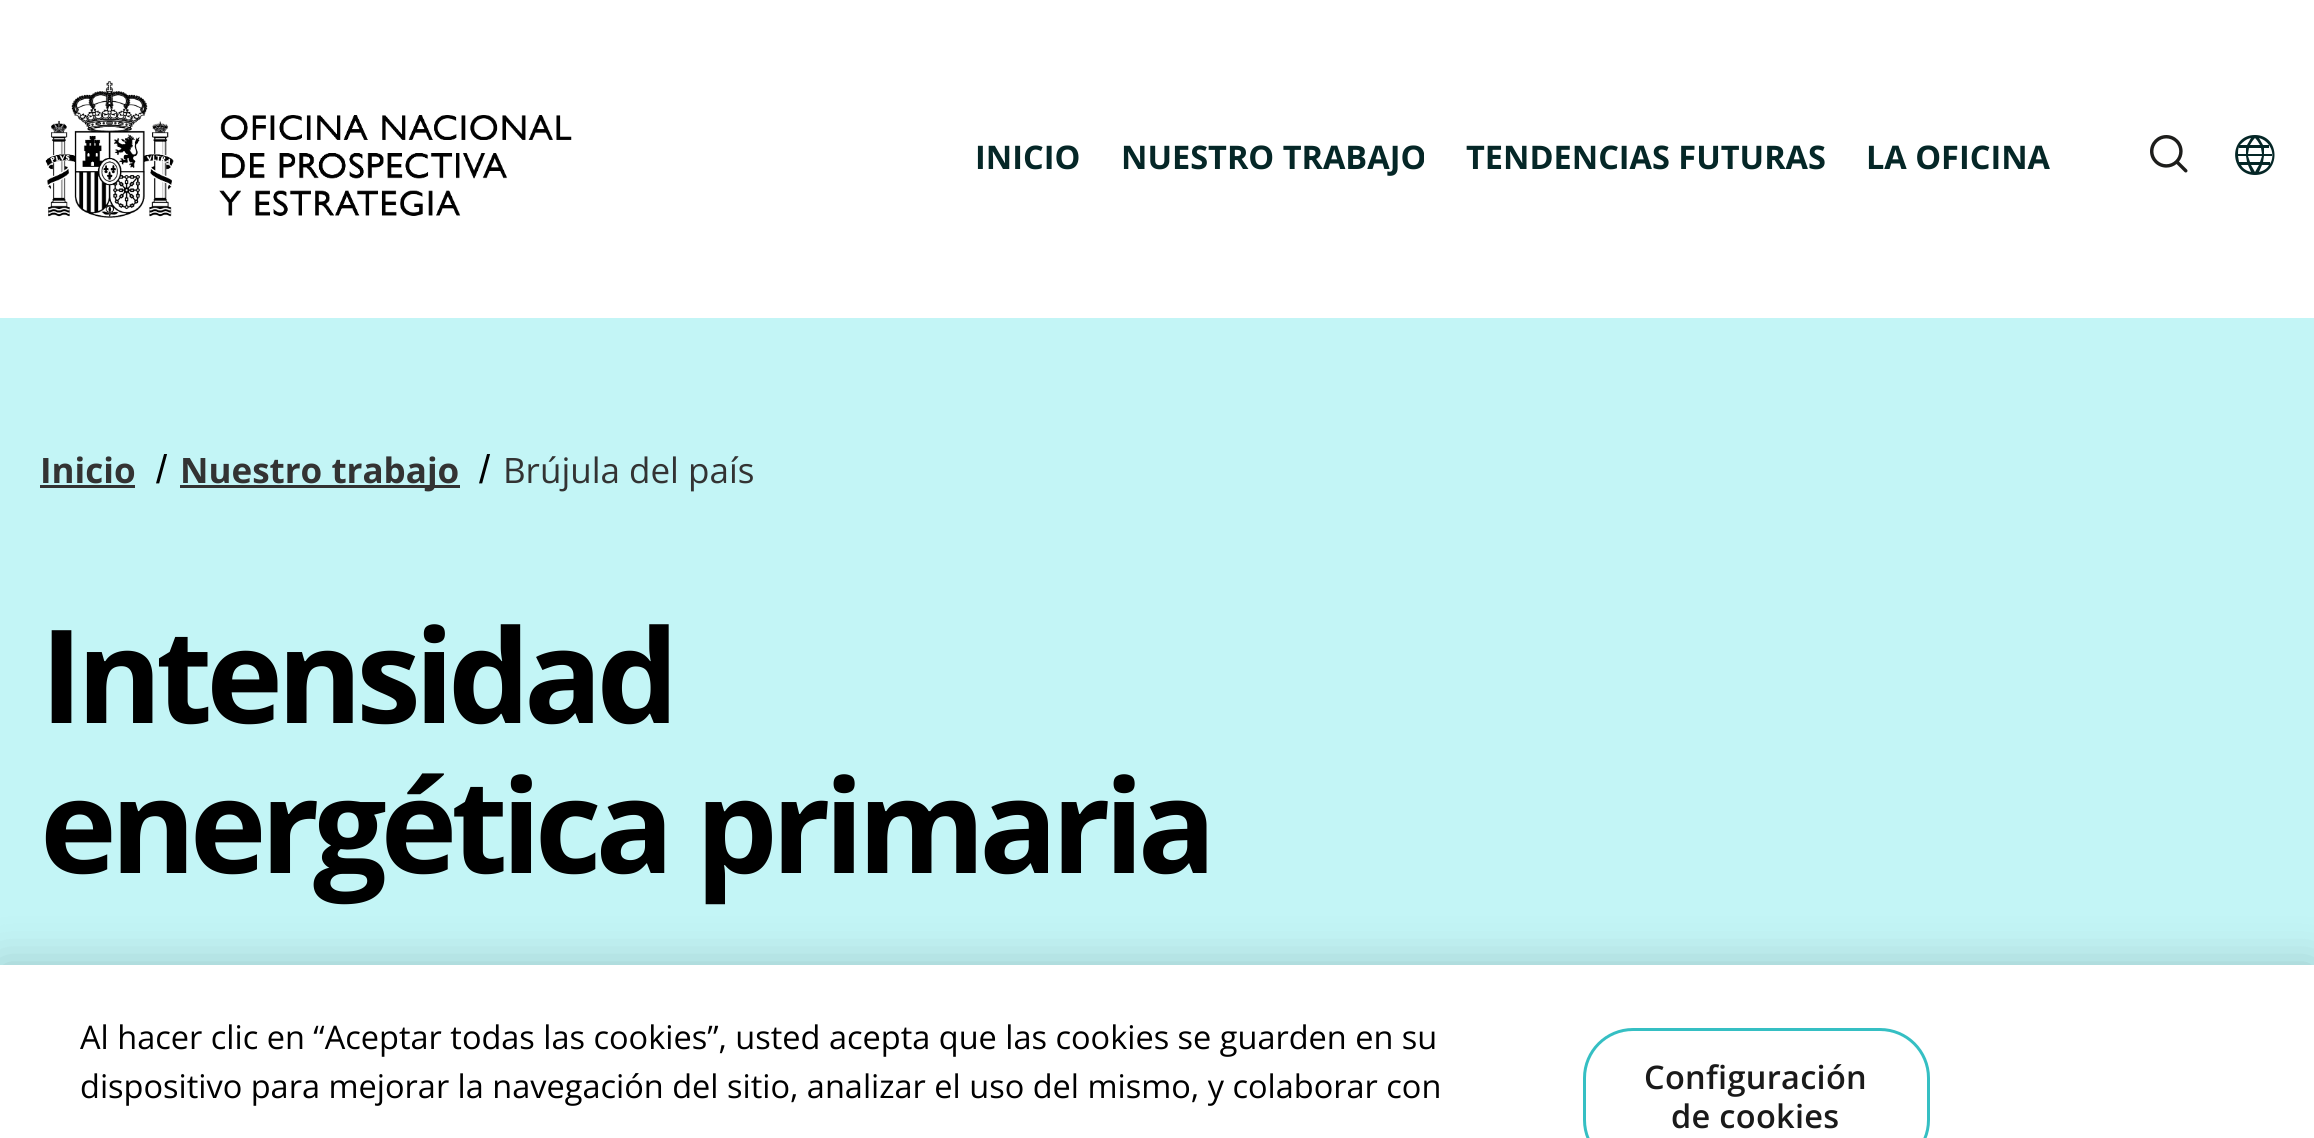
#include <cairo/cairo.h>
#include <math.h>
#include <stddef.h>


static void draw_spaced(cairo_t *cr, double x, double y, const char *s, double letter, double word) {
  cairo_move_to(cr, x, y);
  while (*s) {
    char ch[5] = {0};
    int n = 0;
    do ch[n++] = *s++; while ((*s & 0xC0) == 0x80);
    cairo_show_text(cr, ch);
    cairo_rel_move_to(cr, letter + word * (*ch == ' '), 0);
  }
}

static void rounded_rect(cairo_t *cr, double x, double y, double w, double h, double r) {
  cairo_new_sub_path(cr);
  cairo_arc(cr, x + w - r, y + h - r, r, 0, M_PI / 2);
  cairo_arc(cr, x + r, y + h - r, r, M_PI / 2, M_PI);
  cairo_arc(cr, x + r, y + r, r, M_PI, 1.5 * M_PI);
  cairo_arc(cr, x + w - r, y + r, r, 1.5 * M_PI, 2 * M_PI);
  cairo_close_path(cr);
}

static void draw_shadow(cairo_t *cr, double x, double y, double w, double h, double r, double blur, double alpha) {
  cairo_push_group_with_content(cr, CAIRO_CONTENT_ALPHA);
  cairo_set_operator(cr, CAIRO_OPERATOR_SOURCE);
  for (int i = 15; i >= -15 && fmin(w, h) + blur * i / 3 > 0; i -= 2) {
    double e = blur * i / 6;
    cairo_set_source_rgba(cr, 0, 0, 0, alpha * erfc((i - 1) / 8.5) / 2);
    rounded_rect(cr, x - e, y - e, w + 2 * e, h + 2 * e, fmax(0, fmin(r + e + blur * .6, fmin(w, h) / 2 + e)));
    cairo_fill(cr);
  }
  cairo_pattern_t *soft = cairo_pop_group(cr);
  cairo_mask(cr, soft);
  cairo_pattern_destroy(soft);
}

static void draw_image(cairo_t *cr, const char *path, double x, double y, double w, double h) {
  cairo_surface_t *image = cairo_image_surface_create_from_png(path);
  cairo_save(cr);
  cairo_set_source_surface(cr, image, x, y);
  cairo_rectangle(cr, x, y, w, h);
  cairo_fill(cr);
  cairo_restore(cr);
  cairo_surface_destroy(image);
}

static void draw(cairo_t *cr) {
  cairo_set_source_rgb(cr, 1, 1, 1);
  cairo_paint(cr);
  draw_image(cr, "images/1.png", 45, 81, 527, 137);
  draw_image(cr, "images/2.png", 2150, 135, 38, 38);
  cairo_set_source_rgb(cr, 4 / 255.0, 38 / 255.0, 38 / 255.0);
  cairo_set_fill_rule(cr, CAIRO_FILL_RULE_EVEN_ODD);
  cairo_new_path(cr);
  cairo_move_to(cr, 2255, 135);
  cairo_curve_to(cr, 2281, 135, 2281, 175, 2255, 175);
  cairo_curve_to(cr, 2229, 175, 2228, 135, 2255, 135);
  cairo_close_path(cr);
  cairo_move_to(cr, 2250, 145);
  cairo_curve_to(cr, 2251, 143, 2253, 140, 2255, 138);
  cairo_curve_to(cr, 2257, 140, 2259, 143, 2260, 145);
  cairo_close_path(cr);
  cairo_move_to(cr, 2251, 138);
  cairo_line_to(cr, 2247, 145);
  cairo_line_to(cr, 2240, 145);
  cairo_curve_to(cr, 2243, 142, 2246, 139, 2251, 138);
  cairo_close_path(cr);
  cairo_move_to(cr, 2259, 138);
  cairo_curve_to(cr, 2270, 141, 2276, 154, 2270, 164);
  cairo_line_to(cr, 2270, 162);
  cairo_line_to(cr, 2263, 162);
  cairo_line_to(cr, 2264, 156);
  cairo_line_to(cr, 2272, 156);
  cairo_line_to(cr, 2272, 154);
  cairo_line_to(cr, 2264, 154);
  cairo_line_to(cr, 2264, 148);
  cairo_line_to(cr, 2269, 148);
  cairo_line_to(cr, 2269, 145);
  cairo_line_to(cr, 2263, 145);
  cairo_close_path(cr);
  cairo_move_to(cr, 2239, 147);
  cairo_line_to(cr, 2239, 148);
  cairo_line_to(cr, 2246, 148);
  cairo_line_to(cr, 2246, 154);
  cairo_line_to(cr, 2238, 154);
  cairo_curve_to(cr, 2238, 152, 2238, 149, 2239, 147);
  cairo_close_path(cr);
  cairo_move_to(cr, 2249, 148);
  cairo_line_to(cr, 2261, 148);
  cairo_line_to(cr, 2262, 154);
  cairo_line_to(cr, 2248, 154);
  cairo_close_path(cr);
  cairo_move_to(cr, 2262, 156);
  cairo_line_to(cr, 2260, 162);
  cairo_line_to(cr, 2250, 162);
  cairo_line_to(cr, 2248, 156);
  cairo_close_path(cr);
  cairo_move_to(cr, 2246, 156);
  cairo_line_to(cr, 2247, 162);
  cairo_line_to(cr, 2239, 162);
  cairo_line_to(cr, 2238, 156);
  cairo_close_path(cr);
  cairo_move_to(cr, 2248, 165);
  cairo_line_to(cr, 2251, 172);
  cairo_curve_to(cr, 2247, 171, 2243, 169, 2241, 165);
  cairo_close_path(cr);
  cairo_move_to(cr, 2259, 165);
  cairo_line_to(cr, 2255, 172);
  cairo_line_to(cr, 2251, 165);
  cairo_close_path(cr);
  cairo_move_to(cr, 2269, 165);
  cairo_curve_to(cr, 2267, 169, 2263, 171, 2259, 172);
  cairo_line_to(cr, 2262, 165);
  cairo_close_path(cr);
  cairo_fill(cr);
  cairo_set_source_rgb(cr, 195 / 255.0, 245 / 255.0, 246 / 255.0);
  cairo_rectangle(cr, 0, 318, 2314, 647);
  cairo_fill(cr);
  cairo_set_source_rgb(cr, 51 / 255.0, 51 / 255.0, 51 / 255.0);
  cairo_rectangle(cr, 40, 485, 95, 3);
  cairo_fill(cr);
  cairo_rectangle(cr, 180, 485, 280, 3);
  cairo_fill(cr);
  cairo_set_source_rgb(cr, 0, 0, 0);
  draw_shadow(cr, 0, 965, 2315, 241, 0, 22.5, 0.2);
  cairo_set_source_rgb(cr, 1, 1, 1);
  cairo_rectangle(cr, 0, 965, 2314, 173);
  cairo_fill(cr);
  rounded_rect(cr, 1584.5, 1029.5, 344, 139, 48.5);
  cairo_set_source_rgb(cr, 53 / 255.0, 191 / 255.0, 195 / 255.0);
  cairo_set_line_width(cr, 3);
  cairo_stroke(cr);
  cairo_select_font_face(cr, "Open Sans", CAIRO_FONT_SLANT_NORMAL, CAIRO_FONT_WEIGHT_BOLD);
  cairo_set_font_size(cr, 32.5);
  cairo_set_source_rgb(cr, 5 / 255.0, 39 / 255.0, 39 / 255.0);
  cairo_move_to(cr, 975, 169);
  cairo_show_text(cr, "INICIO");
  cairo_move_to(cr, 1121, 169);
  cairo_show_text(cr, "NUESTRO TRABAJO");
  cairo_move_to(cr, 1466, 169);
  cairo_show_text(cr, "TENDENCIAS FUTURAS");
  cairo_move_to(cr, 1866, 169);
  cairo_show_text(cr, "LA OFICINA");
  cairo_set_font_size(cr, 35);
  cairo_set_source_rgb(cr, 51 / 255.0, 51 / 255.0, 51 / 255.0);
  cairo_move_to(cr, 40, 483);
  cairo_show_text(cr, "Inicio");
  cairo_select_font_face(cr, "Liberation Sans", CAIRO_FONT_SLANT_NORMAL, CAIRO_FONT_WEIGHT_NORMAL);
  cairo_set_font_size(cr, 40);
  cairo_set_source_rgb(cr, 0, 0, 0);
  cairo_move_to(cr, 156, 483);
  cairo_show_text(cr, "/");
  cairo_select_font_face(cr, "Open Sans", CAIRO_FONT_SLANT_NORMAL, CAIRO_FONT_WEIGHT_BOLD);
  cairo_set_font_size(cr, 35);
  cairo_set_source_rgb(cr, 51 / 255.0, 51 / 255.0, 51 / 255.0);
  cairo_move_to(cr, 180, 483);
  cairo_show_text(cr, "Nuestro trabajo");
  cairo_select_font_face(cr, "Liberation Sans", CAIRO_FONT_SLANT_NORMAL, CAIRO_FONT_WEIGHT_NORMAL);
  cairo_set_font_size(cr, 40);
  cairo_set_source_rgb(cr, 0, 0, 0);
  cairo_move_to(cr, 479, 483);
  cairo_show_text(cr, "/");
  cairo_select_font_face(cr, "Open Sans", CAIRO_FONT_SLANT_NORMAL, CAIRO_FONT_WEIGHT_NORMAL);
  cairo_set_font_size(cr, 35);
  cairo_set_source_rgb(cr, 51 / 255.0, 51 / 255.0, 51 / 255.0);
  cairo_move_to(cr, 503, 483);
  cairo_show_text(cr, "Brújula del país");
  cairo_select_font_face(cr, "Open Sans", CAIRO_FONT_SLANT_NORMAL, CAIRO_FONT_WEIGHT_BOLD);
  cairo_set_font_size(cr, 130);
  cairo_set_source_rgb(cr, 0, 0, 0);
  draw_spaced(cr, 40, 723, "Intensidad", -6.2, 0);
  draw_spaced(cr, 40, 873, "energética primaria", -6.2, 0);
  cairo_select_font_face(cr, "Open Sans", CAIRO_FONT_SLANT_NORMAL, CAIRO_FONT_WEIGHT_NORMAL);
  cairo_set_font_size(cr, 32.5);
  cairo_move_to(cr, 80, 1049);
  cairo_show_text(cr, "Al hacer clic en “Aceptar todas las cookies”, usted acepta que las cookies se guarden en su");
  cairo_move_to(cr, 80, 1098);
  cairo_show_text(cr, "dispositivo para mejorar la navegación del sitio, analizar el uso del mismo, y colaborar con");
  cairo_select_font_face(cr, "Open Sans SemiBold", CAIRO_FONT_SLANT_NORMAL, CAIRO_FONT_WEIGHT_NORMAL);
  cairo_set_source_rgb(cr, 26 / 255.0, 26 / 255.0, 26 / 255.0);
  draw_spaced(cr, 1644, 1089, "Configuración", 0.3, 0);
  draw_spaced(cr, 1671, 1128, "de cookies", 0.3, 0);
}

int main(void) {
  cairo_surface_t *surface = cairo_image_surface_create(CAIRO_FORMAT_RGB24, 2314, 1138);
  cairo_t *cr = cairo_create(surface);
  cairo_font_options_t *options = cairo_font_options_create();
  cairo_font_options_set_hint_metrics(options, CAIRO_HINT_METRICS_OFF);
  cairo_font_options_set_hint_style(options, CAIRO_HINT_STYLE_NONE);
  cairo_set_font_options(cr, options);
  cairo_set_miter_limit(cr, 4);
  draw(cr);
  cairo_surface_write_to_png(surface, "out.png");
  cairo_font_options_destroy(options);
  cairo_destroy(cr);
  cairo_surface_destroy(surface);
  return 0;
}
